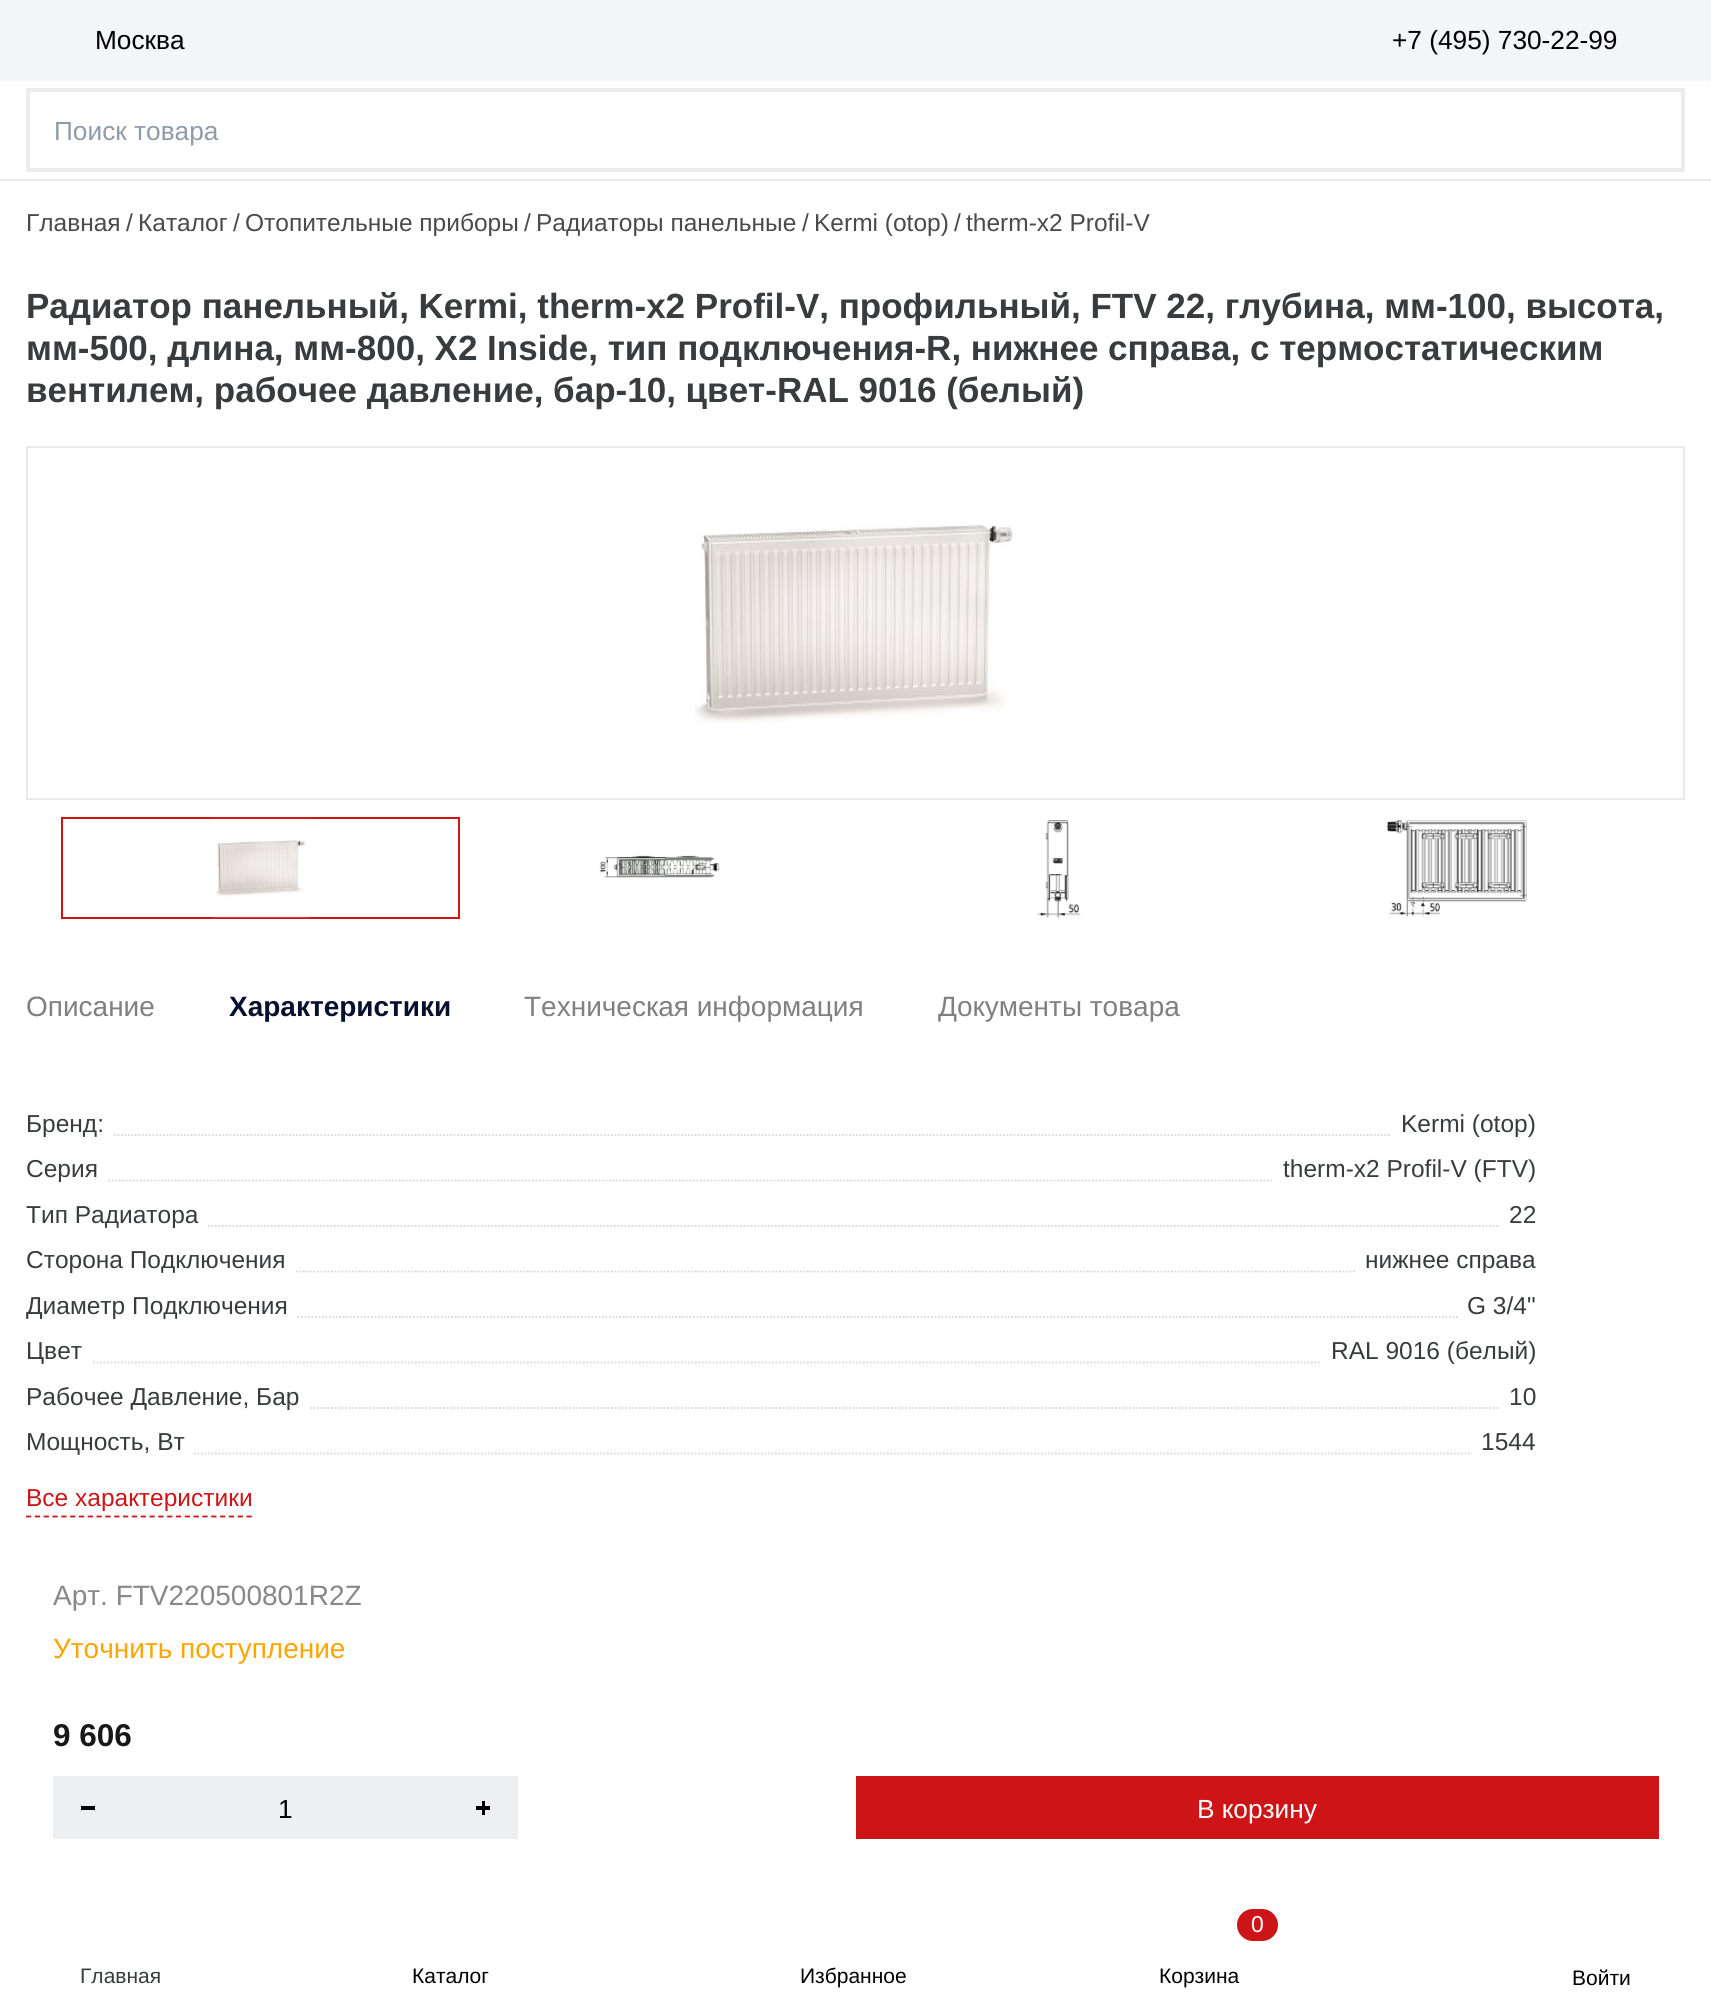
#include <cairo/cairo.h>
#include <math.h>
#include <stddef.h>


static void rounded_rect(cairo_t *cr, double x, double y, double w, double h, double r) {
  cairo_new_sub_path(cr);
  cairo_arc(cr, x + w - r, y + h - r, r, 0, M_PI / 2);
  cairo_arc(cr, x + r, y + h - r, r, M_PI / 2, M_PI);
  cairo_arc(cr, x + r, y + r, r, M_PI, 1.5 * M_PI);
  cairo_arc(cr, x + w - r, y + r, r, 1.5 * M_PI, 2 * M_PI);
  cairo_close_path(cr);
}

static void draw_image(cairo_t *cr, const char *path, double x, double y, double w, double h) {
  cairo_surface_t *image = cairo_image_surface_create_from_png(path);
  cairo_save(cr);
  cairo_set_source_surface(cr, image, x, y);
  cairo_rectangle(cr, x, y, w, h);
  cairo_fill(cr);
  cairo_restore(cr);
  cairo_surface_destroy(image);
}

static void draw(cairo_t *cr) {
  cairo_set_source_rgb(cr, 1, 1, 1);
  cairo_paint(cr);
  cairo_set_source_rgb(cr, 231 / 255.0, 234 / 255.0, 237 / 255.0);
  cairo_rectangle(cr, 0, 179, 1711, 2);
  cairo_fill(cr);
  cairo_set_source_rgb(cr, 243 / 255.0, 245 / 255.0, 247 / 255.0);
  cairo_rectangle(cr, 0, 0, 1711, 81);
  cairo_fill(cr);
  cairo_rectangle(cr, 28, 90, 1655, 80);
  cairo_set_source_rgb(cr, 235 / 255.0, 236 / 255.0, 240 / 255.0);
  cairo_set_line_width(cr, 4);
  cairo_stroke(cr);
  cairo_set_source_rgb(cr, 205 / 255.0, 21 / 255.0, 24 / 255.0);
  rounded_rect(cr, 1237, 1909, 41, 32, 16);
  cairo_fill(cr);
  cairo_rectangle(cr, 27, 447, 1657, 352);
  cairo_set_source_rgb(cr, 231 / 255.0, 234 / 255.0, 237 / 255.0);
  cairo_set_line_width(cr, 2);
  cairo_stroke(cr);
  draw_image(cr, "images/1.png", 694, 524, 319, 200);
  cairo_rectangle(cr, 62, 818, 397, 100);
  cairo_set_source_rgb(cr, 205 / 255.0, 21 / 255.0, 24 / 255.0);
  cairo_stroke(cr);
  draw_image(cr, "images/2.png", 212, 818, 98, 100);
  draw_image(cr, "images/3.png", 599, 855, 121, 23);
  draw_image(cr, "images/4.png", 1037, 820, 44, 98);
  draw_image(cr, "images/5.png", 1386, 820, 141, 98);
  cairo_new_path(cr);
  cairo_move_to(cr, 114, 1135);
  cairo_line_to(cr, 1391, 1135);
  cairo_set_source_rgb(cr, 212 / 255.0, 215 / 255.0, 219 / 255.0);
  cairo_set_line_width(cr, 1.8);
  cairo_set_dash(cr, (double[]){1.75, 1.75}, 2, 0);
  cairo_stroke(cr);
  cairo_new_path(cr);
  cairo_move_to(cr, 108.5, 1180.5);
  cairo_line_to(cr, 1272, 1180.5);
  cairo_stroke(cr);
  cairo_new_path(cr);
  cairo_move_to(cr, 208, 1226);
  cairo_line_to(cr, 1500, 1226);
  cairo_stroke(cr);
  cairo_new_path(cr);
  cairo_move_to(cr, 296, 1271.5);
  cairo_line_to(cr, 1356, 1271.5);
  cairo_stroke(cr);
  cairo_new_path(cr);
  cairo_move_to(cr, 297.5, 1317);
  cairo_line_to(cr, 1458, 1317);
  cairo_stroke(cr);
  cairo_new_path(cr);
  cairo_move_to(cr, 93, 1362.5);
  cairo_line_to(cr, 1321, 1362.5);
  cairo_stroke(cr);
  cairo_new_path(cr);
  cairo_move_to(cr, 310, 1408);
  cairo_line_to(cr, 1500, 1408);
  cairo_stroke(cr);
  cairo_new_path(cr);
  cairo_move_to(cr, 194, 1453.5);
  cairo_line_to(cr, 1472, 1453.5);
  cairo_stroke(cr);
  cairo_new_path(cr);
  cairo_move_to(cr, 26, 1516.5);
  cairo_line_to(cr, 252, 1516.5);
  cairo_set_source_rgb(cr, 205 / 255.0, 21 / 255.0, 24 / 255.0);
  cairo_set_dash(cr, (double[]){5.25, 3.57}, 2, 0);
  cairo_stroke(cr);
  cairo_set_source_rgb(cr, 238 / 255.0, 239 / 255.0, 241 / 255.0);
  cairo_rectangle(cr, 53, 1776, 465, 63);
  cairo_fill(cr);
  cairo_set_source_rgb(cr, 0, 0, 0);
  cairo_rectangle(cr, 81, 1806, 14, 4);
  cairo_fill(cr);
  cairo_rectangle(cr, 482, 1801, 3, 14);
  cairo_fill(cr);
  cairo_rectangle(cr, 476, 1806, 14, 4);
  cairo_fill(cr);
  cairo_set_source_rgb(cr, 205 / 255.0, 21 / 255.0, 24 / 255.0);
  cairo_rectangle(cr, 856, 1776, 803, 63);
  cairo_fill(cr);
  cairo_select_font_face(cr, "Liberation Sans", CAIRO_FONT_SLANT_NORMAL, CAIRO_FONT_WEIGHT_NORMAL);
  cairo_set_font_size(cr, 26.25);
  cairo_set_source_rgb(cr, 0, 0, 0);
  cairo_move_to(cr, 95, 49);
  cairo_show_text(cr, "Москва");
  cairo_move_to(cr, 1392, 49);
  cairo_show_text(cr, "+7 (495) 730-22-99");
  cairo_set_source_rgb(cr, 144 / 255.0, 155 / 255.0, 168 / 255.0);
  cairo_move_to(cr, 54, 140);
  cairo_show_text(cr, "Поиск товара");
  cairo_set_font_size(cr, 21);
  cairo_set_source_rgb(cr, 56 / 255.0, 60 / 255.0, 62 / 255.0);
  cairo_move_to(cr, 80, 1983);
  cairo_show_text(cr, "Главная");
  cairo_set_source_rgb(cr, 0, 0, 0);
  cairo_move_to(cr, 412, 1983);
  cairo_show_text(cr, "Каталог");
  cairo_move_to(cr, 800, 1983);
  cairo_show_text(cr, "Избранное");
  cairo_set_font_size(cr, 23);
  cairo_set_source_rgb(cr, 1, 1, 1);
  cairo_move_to(cr, 1251, 1932);
  cairo_show_text(cr, "0");
  cairo_set_font_size(cr, 21);
  cairo_set_source_rgb(cr, 0, 0, 0);
  cairo_move_to(cr, 1159, 1983);
  cairo_show_text(cr, "Корзина");
  cairo_move_to(cr, 1572, 1985);
  cairo_show_text(cr, "Войти");
  cairo_set_font_size(cr, 24.5);
  cairo_set_source_rgb(cr, 74 / 255.0, 74 / 255.0, 74 / 255.0);
  cairo_move_to(cr, 26, 231);
  cairo_show_text(cr, "Главная");
  cairo_move_to(cr, 126, 231);
  cairo_show_text(cr, "/");
  cairo_move_to(cr, 138, 231);
  cairo_show_text(cr, "Каталог");
  cairo_move_to(cr, 233, 231);
  cairo_show_text(cr, "/");
  cairo_move_to(cr, 245, 231);
  cairo_show_text(cr, "Отопительные приборы");
  cairo_move_to(cr, 524, 231);
  cairo_show_text(cr, "/");
  cairo_move_to(cr, 536, 231);
  cairo_show_text(cr, "Радиаторы панельные");
  cairo_move_to(cr, 802, 231);
  cairo_show_text(cr, "/");
  cairo_move_to(cr, 814, 231);
  cairo_show_text(cr, "Kermi (otop)");
  cairo_move_to(cr, 954, 231);
  cairo_show_text(cr, "/");
  cairo_move_to(cr, 966, 231);
  cairo_show_text(cr, "therm-x2 Profil-V");
  cairo_select_font_face(cr, "Liberation Sans", CAIRO_FONT_SLANT_NORMAL, CAIRO_FONT_WEIGHT_BOLD);
  cairo_set_font_size(cr, 35);
  cairo_set_source_rgb(cr, 56 / 255.0, 60 / 255.0, 62 / 255.0);
  cairo_move_to(cr, 26, 318);
  cairo_show_text(cr, "Радиатор панельный, Kermi, therm-x2 Profil-V, профильный, FTV 22, глубина, мм-100, высота,");
  cairo_move_to(cr, 26, 360);
  cairo_show_text(cr, "мм-500, длина, мм-800, X2 Inside, тип подключения-R, нижнее справа, с термостатическим");
  cairo_move_to(cr, 26, 402);
  cairo_show_text(cr, "вентилем, рабочее давление, бар-10, цвет-RAL 9016 (белый)");
  cairo_select_font_face(cr, "Liberation Sans", CAIRO_FONT_SLANT_NORMAL, CAIRO_FONT_WEIGHT_NORMAL);
  cairo_set_font_size(cr, 28);
  cairo_set_source_rgb(cr, 128 / 255.0, 128 / 255.0, 128 / 255.0);
  cairo_move_to(cr, 26, 1016);
  cairo_show_text(cr, "Описание");
  cairo_select_font_face(cr, "Liberation Sans", CAIRO_FONT_SLANT_NORMAL, CAIRO_FONT_WEIGHT_BOLD);
  cairo_set_source_rgb(cr, 7 / 255.0, 16 / 255.0, 45 / 255.0);
  cairo_move_to(cr, 229, 1016);
  cairo_show_text(cr, "Характеристики");
  cairo_select_font_face(cr, "Liberation Sans", CAIRO_FONT_SLANT_NORMAL, CAIRO_FONT_WEIGHT_NORMAL);
  cairo_set_source_rgb(cr, 128 / 255.0, 128 / 255.0, 128 / 255.0);
  cairo_move_to(cr, 524, 1016);
  cairo_show_text(cr, "Техническая информация");
  cairo_move_to(cr, 938, 1016);
  cairo_show_text(cr, "Документы товара");
  cairo_set_font_size(cr, 24.5);
  cairo_set_source_rgb(cr, 56 / 255.0, 60 / 255.0, 62 / 255.0);
  cairo_move_to(cr, 26, 1132);
  cairo_show_text(cr, "Бренд:");
  cairo_move_to(cr, 1401, 1132);
  cairo_show_text(cr, "Kermi (otop)");
  cairo_move_to(cr, 26, 1177);
  cairo_show_text(cr, "Cерия");
  cairo_move_to(cr, 1283, 1177);
  cairo_show_text(cr, "therm-x2 Profil-V (FTV)");
  cairo_move_to(cr, 26, 1223);
  cairo_show_text(cr, "Тип Радиатора");
  cairo_move_to(cr, 1509, 1223);
  cairo_show_text(cr, "22");
  cairo_move_to(cr, 26, 1268);
  cairo_show_text(cr, "Сторона Подключения");
  cairo_move_to(cr, 1365, 1268);
  cairo_show_text(cr, "нижнее справа");
  cairo_move_to(cr, 26, 1314);
  cairo_show_text(cr, "Диаметр Подключения");
  cairo_move_to(cr, 1467, 1314);
  cairo_show_text(cr, "G 3/4\"");
  cairo_move_to(cr, 26, 1359);
  cairo_show_text(cr, "Цвет");
  cairo_move_to(cr, 1331, 1359);
  cairo_show_text(cr, "RAL 9016 (белый)");
  cairo_move_to(cr, 26, 1405);
  cairo_show_text(cr, "Рабочее Давление, Бар");
  cairo_move_to(cr, 1509, 1405);
  cairo_show_text(cr, "10");
  cairo_move_to(cr, 26, 1450);
  cairo_show_text(cr, "Мощность, Вт");
  cairo_move_to(cr, 1481, 1450);
  cairo_show_text(cr, "1544");
  cairo_set_source_rgb(cr, 205 / 255.0, 21 / 255.0, 24 / 255.0);
  cairo_move_to(cr, 26, 1506);
  cairo_show_text(cr, "Все характеристики");
  cairo_set_font_size(cr, 28);
  cairo_set_source_rgb(cr, 136 / 255.0, 136 / 255.0, 136 / 255.0);
  cairo_move_to(cr, 53, 1605);
  cairo_show_text(cr, "Арт. FTV220500801R2Z");
  cairo_set_source_rgb(cr, 1, 165 / 255.0, 0);
  cairo_move_to(cr, 53, 1658);
  cairo_show_text(cr, "Уточнить поступление");
  cairo_select_font_face(cr, "Liberation Sans", CAIRO_FONT_SLANT_NORMAL, CAIRO_FONT_WEIGHT_BOLD);
  cairo_set_font_size(cr, 31.5);
  cairo_set_source_rgb(cr, 24 / 255.0, 24 / 255.0, 24 / 255.0);
  cairo_move_to(cr, 53, 1746);
  cairo_show_text(cr, "9 606");
  cairo_select_font_face(cr, "Liberation Sans", CAIRO_FONT_SLANT_NORMAL, CAIRO_FONT_WEIGHT_NORMAL);
  cairo_set_font_size(cr, 26.25);
  cairo_set_source_rgb(cr, 0, 0, 0);
  cairo_move_to(cr, 278, 1818);
  cairo_show_text(cr, "1");
  cairo_set_source_rgb(cr, 1, 1, 1);
  cairo_move_to(cr, 1197, 1818);
  cairo_show_text(cr, "В корзину");
}

int main(void) {
  cairo_surface_t *surface = cairo_image_surface_create(CAIRO_FORMAT_RGB24, 1711, 2007);
  cairo_t *cr = cairo_create(surface);
  cairo_font_options_t *options = cairo_font_options_create();
  cairo_font_options_set_hint_metrics(options, CAIRO_HINT_METRICS_OFF);
  cairo_font_options_set_hint_style(options, CAIRO_HINT_STYLE_NONE);
  cairo_set_font_options(cr, options);
  cairo_set_miter_limit(cr, 4);
  draw(cr);
  cairo_surface_write_to_png(surface, "out.png");
  cairo_font_options_destroy(options);
  cairo_destroy(cr);
  cairo_surface_destroy(surface);
  return 0;
}
